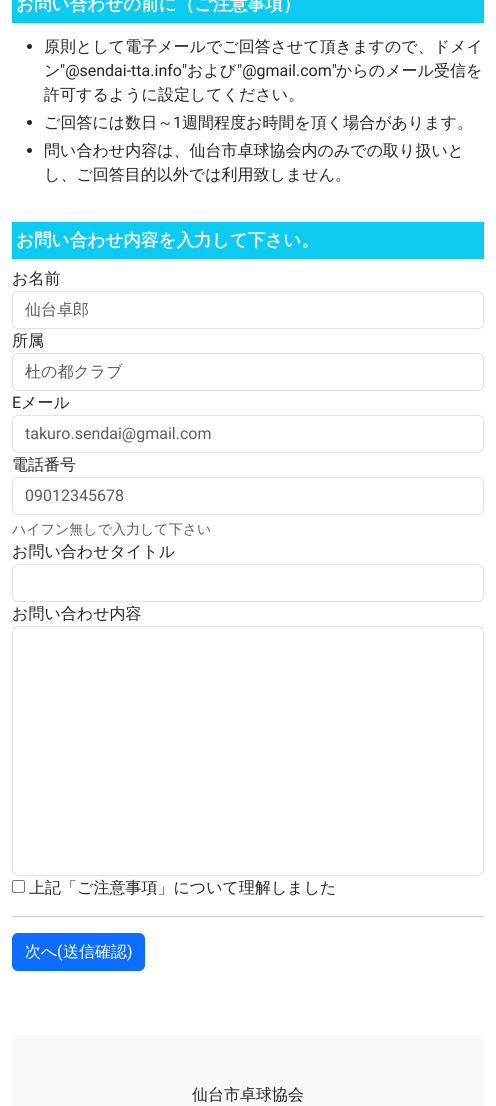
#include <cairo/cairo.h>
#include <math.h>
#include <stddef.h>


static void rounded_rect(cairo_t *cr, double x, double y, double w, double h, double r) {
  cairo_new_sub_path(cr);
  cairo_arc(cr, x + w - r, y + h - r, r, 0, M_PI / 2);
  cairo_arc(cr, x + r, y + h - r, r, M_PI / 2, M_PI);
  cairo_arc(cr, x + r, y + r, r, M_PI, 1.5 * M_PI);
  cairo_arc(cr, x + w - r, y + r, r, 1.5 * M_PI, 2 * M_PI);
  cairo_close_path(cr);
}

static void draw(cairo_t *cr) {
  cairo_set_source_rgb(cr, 1, 1, 1);
  cairo_paint(cr);
  cairo_set_source_rgb(cr, 13 / 255.0, 202 / 255.0, 240 / 255.0);
  cairo_rectangle(cr, 12, 0, 472, 23);
  cairo_fill(cr);
  cairo_set_source_rgb(cr, 33 / 255.0, 37 / 255.0, 41 / 255.0);
  cairo_arc(cr, 29.5, 46.5, 2.5, 0, 2 * M_PI);
  cairo_fill(cr);
  cairo_arc(cr, 29.5, 122.5, 2.5, 0, 2 * M_PI);
  cairo_fill(cr);
  cairo_arc(cr, 29.5, 150.5, 2.5, 0, 2 * M_PI);
  cairo_fill(cr);
  cairo_set_source_rgb(cr, 13 / 255.0, 202 / 255.0, 240 / 255.0);
  cairo_rectangle(cr, 12, 222, 472, 37);
  cairo_fill(cr);
  rounded_rect(cr, 12.5, 291.5, 471, 37, 5.5);
  cairo_set_source_rgb(cr, 222 / 255.0, 226 / 255.0, 230 / 255.0);
  cairo_set_line_width(cr, 1);
  cairo_stroke(cr);
  rounded_rect(cr, 12.5, 353.5, 471, 37, 5.5);
  cairo_stroke(cr);
  rounded_rect(cr, 12.5, 415.5, 471, 37, 5.5);
  cairo_stroke(cr);
  rounded_rect(cr, 12.5, 477.5, 471, 37, 5.5);
  cairo_stroke(cr);
  rounded_rect(cr, 12.5, 564.5, 471, 37, 5.5);
  cairo_stroke(cr);
  rounded_rect(cr, 12.5, 626.5, 471, 249, 5.5);
  cairo_stroke(cr);
  rounded_rect(cr, 12.5, 880.5, 12, 12, 1.5);
  cairo_set_source_rgb(cr, 118 / 255.0, 118 / 255.0, 118 / 255.0);
  cairo_stroke(cr);
  cairo_set_source_rgb(cr, 200 / 255.0, 201 / 255.0, 202 / 255.0);
  cairo_rectangle(cr, 12, 916, 472, 1);
  cairo_fill(cr);
  cairo_set_source_rgb(cr, 13 / 255.0, 110 / 255.0, 253 / 255.0);
  rounded_rect(cr, 12.5, 933.5, 132, 37, 5.5);
  cairo_fill_preserve(cr);
  cairo_stroke(cr);
  cairo_set_source_rgb(cr, 248 / 255.0, 249 / 255.0, 250 / 255.0);
  cairo_rectangle(cr, 12, 1035, 472, 71);
  cairo_fill(cr);
  cairo_select_font_face(cr, "WenQuanYi Zen Hei", CAIRO_FONT_SLANT_NORMAL, CAIRO_FONT_WEIGHT_BOLD);
  cairo_set_font_size(cr, 17.6);
  cairo_set_source_rgb(cr, 1, 1, 1);
  cairo_move_to(cr, 16, 10);
  cairo_show_text(cr, "お問い合わせの前に（ご注意事項）");
  cairo_select_font_face(cr, "WenQuanYi Zen Hei Medium", CAIRO_FONT_SLANT_NORMAL, CAIRO_FONT_WEIGHT_NORMAL);
  cairo_set_font_size(cr, 16);
  cairo_set_source_rgb(cr, 33 / 255.0, 37 / 255.0, 41 / 255.0);
  cairo_move_to(cr, 44, 52);
  cairo_show_text(cr, "原則として電子メールでご回答させて頂きますので、ドメイ");
  cairo_move_to(cr, 44, 76);
  cairo_show_text(cr, "ン");
  cairo_select_font_face(cr, "Roboto", CAIRO_FONT_SLANT_NORMAL, CAIRO_FONT_WEIGHT_NORMAL);
  cairo_move_to(cr, 60, 76);
  cairo_show_text(cr, "\"@sendai-tta.info\"");
  cairo_select_font_face(cr, "WenQuanYi Zen Hei Medium", CAIRO_FONT_SLANT_NORMAL, CAIRO_FONT_WEIGHT_NORMAL);
  cairo_move_to(cr, 187, 76);
  cairo_show_text(cr, "および");
  cairo_select_font_face(cr, "Roboto", CAIRO_FONT_SLANT_NORMAL, CAIRO_FONT_WEIGHT_NORMAL);
  cairo_move_to(cr, 237, 76);
  cairo_show_text(cr, "\"@gmail.com\"");
  cairo_select_font_face(cr, "WenQuanYi Zen Hei Medium", CAIRO_FONT_SLANT_NORMAL, CAIRO_FONT_WEIGHT_NORMAL);
  cairo_move_to(cr, 336, 76);
  cairo_show_text(cr, "からのメール受信を");
  cairo_move_to(cr, 44, 100);
  cairo_show_text(cr, "許可するように設定してください。");
  cairo_move_to(cr, 44, 128);
  cairo_show_text(cr, "ご回答には数日～");
  cairo_select_font_face(cr, "Roboto", CAIRO_FONT_SLANT_NORMAL, CAIRO_FONT_WEIGHT_NORMAL);
  cairo_move_to(cr, 173, 128);
  cairo_show_text(cr, "1");
  cairo_select_font_face(cr, "WenQuanYi Zen Hei Medium", CAIRO_FONT_SLANT_NORMAL, CAIRO_FONT_WEIGHT_NORMAL);
  cairo_move_to(cr, 182, 128);
  cairo_show_text(cr, "週間程度お時間を頂く場合があります。");
  cairo_move_to(cr, 44, 156);
  cairo_show_text(cr, "問い合わせ内容は、仙台市卓球協会内のみでの取り扱いと");
  cairo_move_to(cr, 44, 180);
  cairo_show_text(cr, "し、ご回答目的以外では利用致しません。");
  cairo_select_font_face(cr, "WenQuanYi Zen Hei", CAIRO_FONT_SLANT_NORMAL, CAIRO_FONT_WEIGHT_BOLD);
  cairo_set_font_size(cr, 17.6);
  cairo_set_source_rgb(cr, 1, 1, 1);
  cairo_move_to(cr, 16, 246);
  cairo_show_text(cr, "お問い合わせ内容を入力して下さい。");
  cairo_select_font_face(cr, "WenQuanYi Zen Hei Medium", CAIRO_FONT_SLANT_NORMAL, CAIRO_FONT_WEIGHT_NORMAL);
  cairo_set_font_size(cr, 16);
  cairo_set_source_rgb(cr, 33 / 255.0, 37 / 255.0, 41 / 255.0);
  cairo_move_to(cr, 12, 284);
  cairo_show_text(cr, "お名前");
  cairo_set_source_rgb(cr, 89 / 255.0, 92 / 255.0, 95 / 255.0);
  cairo_move_to(cr, 25, 315);
  cairo_show_text(cr, "仙台卓郎");
  cairo_set_source_rgb(cr, 33 / 255.0, 37 / 255.0, 41 / 255.0);
  cairo_move_to(cr, 12, 346);
  cairo_show_text(cr, "所属");
  cairo_set_source_rgb(cr, 89 / 255.0, 92 / 255.0, 95 / 255.0);
  cairo_move_to(cr, 25, 377);
  cairo_show_text(cr, "杜の都クラブ");
  cairo_select_font_face(cr, "Roboto", CAIRO_FONT_SLANT_NORMAL, CAIRO_FONT_WEIGHT_NORMAL);
  cairo_set_source_rgb(cr, 33 / 255.0, 37 / 255.0, 41 / 255.0);
  cairo_move_to(cr, 12, 408);
  cairo_show_text(cr, "E");
  cairo_select_font_face(cr, "WenQuanYi Zen Hei Medium", CAIRO_FONT_SLANT_NORMAL, CAIRO_FONT_WEIGHT_NORMAL);
  cairo_move_to(cr, 21, 408);
  cairo_show_text(cr, "メール");
  cairo_select_font_face(cr, "Roboto", CAIRO_FONT_SLANT_NORMAL, CAIRO_FONT_WEIGHT_NORMAL);
  cairo_set_source_rgb(cr, 89 / 255.0, 92 / 255.0, 95 / 255.0);
  cairo_move_to(cr, 25, 439);
  cairo_show_text(cr, "takuro.sendai@gmail.com");
  cairo_select_font_face(cr, "WenQuanYi Zen Hei Medium", CAIRO_FONT_SLANT_NORMAL, CAIRO_FONT_WEIGHT_NORMAL);
  cairo_set_source_rgb(cr, 33 / 255.0, 37 / 255.0, 41 / 255.0);
  cairo_move_to(cr, 12, 470);
  cairo_show_text(cr, "電話番号");
  cairo_select_font_face(cr, "Roboto", CAIRO_FONT_SLANT_NORMAL, CAIRO_FONT_WEIGHT_NORMAL);
  cairo_set_source_rgb(cr, 89 / 255.0, 92 / 255.0, 95 / 255.0);
  cairo_move_to(cr, 25, 501);
  cairo_show_text(cr, "09012345678");
  cairo_select_font_face(cr, "WenQuanYi Zen Hei Medium", CAIRO_FONT_SLANT_NORMAL, CAIRO_FONT_WEIGHT_NORMAL);
  cairo_set_font_size(cr, 14);
  cairo_move_to(cr, 12, 534);
  cairo_show_text(cr, "ハイフン無しで入力して下さい");
  cairo_set_font_size(cr, 16);
  cairo_set_source_rgb(cr, 33 / 255.0, 37 / 255.0, 41 / 255.0);
  cairo_move_to(cr, 12, 557);
  cairo_show_text(cr, "お問い合わせタイトル");
  cairo_move_to(cr, 12, 619);
  cairo_show_text(cr, "お問い合わせ内容");
  cairo_move_to(cr, 29, 893);
  cairo_show_text(cr, "上記「ご注意事項」について理解しました");
  cairo_set_source_rgb(cr, 1, 1, 1);
  cairo_move_to(cr, 25, 957);
  cairo_show_text(cr, "次へ");
  cairo_select_font_face(cr, "Roboto", CAIRO_FONT_SLANT_NORMAL, CAIRO_FONT_WEIGHT_NORMAL);
  cairo_move_to(cr, 57, 957);
  cairo_show_text(cr, "(");
  cairo_select_font_face(cr, "WenQuanYi Zen Hei Medium", CAIRO_FONT_SLANT_NORMAL, CAIRO_FONT_WEIGHT_NORMAL);
  cairo_move_to(cr, 63, 957);
  cairo_show_text(cr, "送信確認");
  cairo_select_font_face(cr, "Roboto", CAIRO_FONT_SLANT_NORMAL, CAIRO_FONT_WEIGHT_NORMAL);
  cairo_move_to(cr, 127, 957);
  cairo_show_text(cr, ")");
  cairo_select_font_face(cr, "WenQuanYi Zen Hei Medium", CAIRO_FONT_SLANT_NORMAL, CAIRO_FONT_WEIGHT_NORMAL);
  cairo_set_source_rgb(cr, 33 / 255.0, 37 / 255.0, 41 / 255.0);
  cairo_move_to(cr, 192, 1100);
  cairo_show_text(cr, "仙台市卓球協会");
}

int main(void) {
  cairo_surface_t *surface = cairo_image_surface_create(CAIRO_FORMAT_RGB24, 496, 1106);
  cairo_t *cr = cairo_create(surface);
  cairo_font_options_t *options = cairo_font_options_create();
  cairo_font_options_set_hint_metrics(options, CAIRO_HINT_METRICS_OFF);
  cairo_font_options_set_hint_style(options, CAIRO_HINT_STYLE_NONE);
  cairo_set_font_options(cr, options);
  cairo_set_miter_limit(cr, 4);
  draw(cr);
  cairo_surface_write_to_png(surface, "out.png");
  cairo_font_options_destroy(options);
  cairo_destroy(cr);
  cairo_surface_destroy(surface);
  return 0;
}
